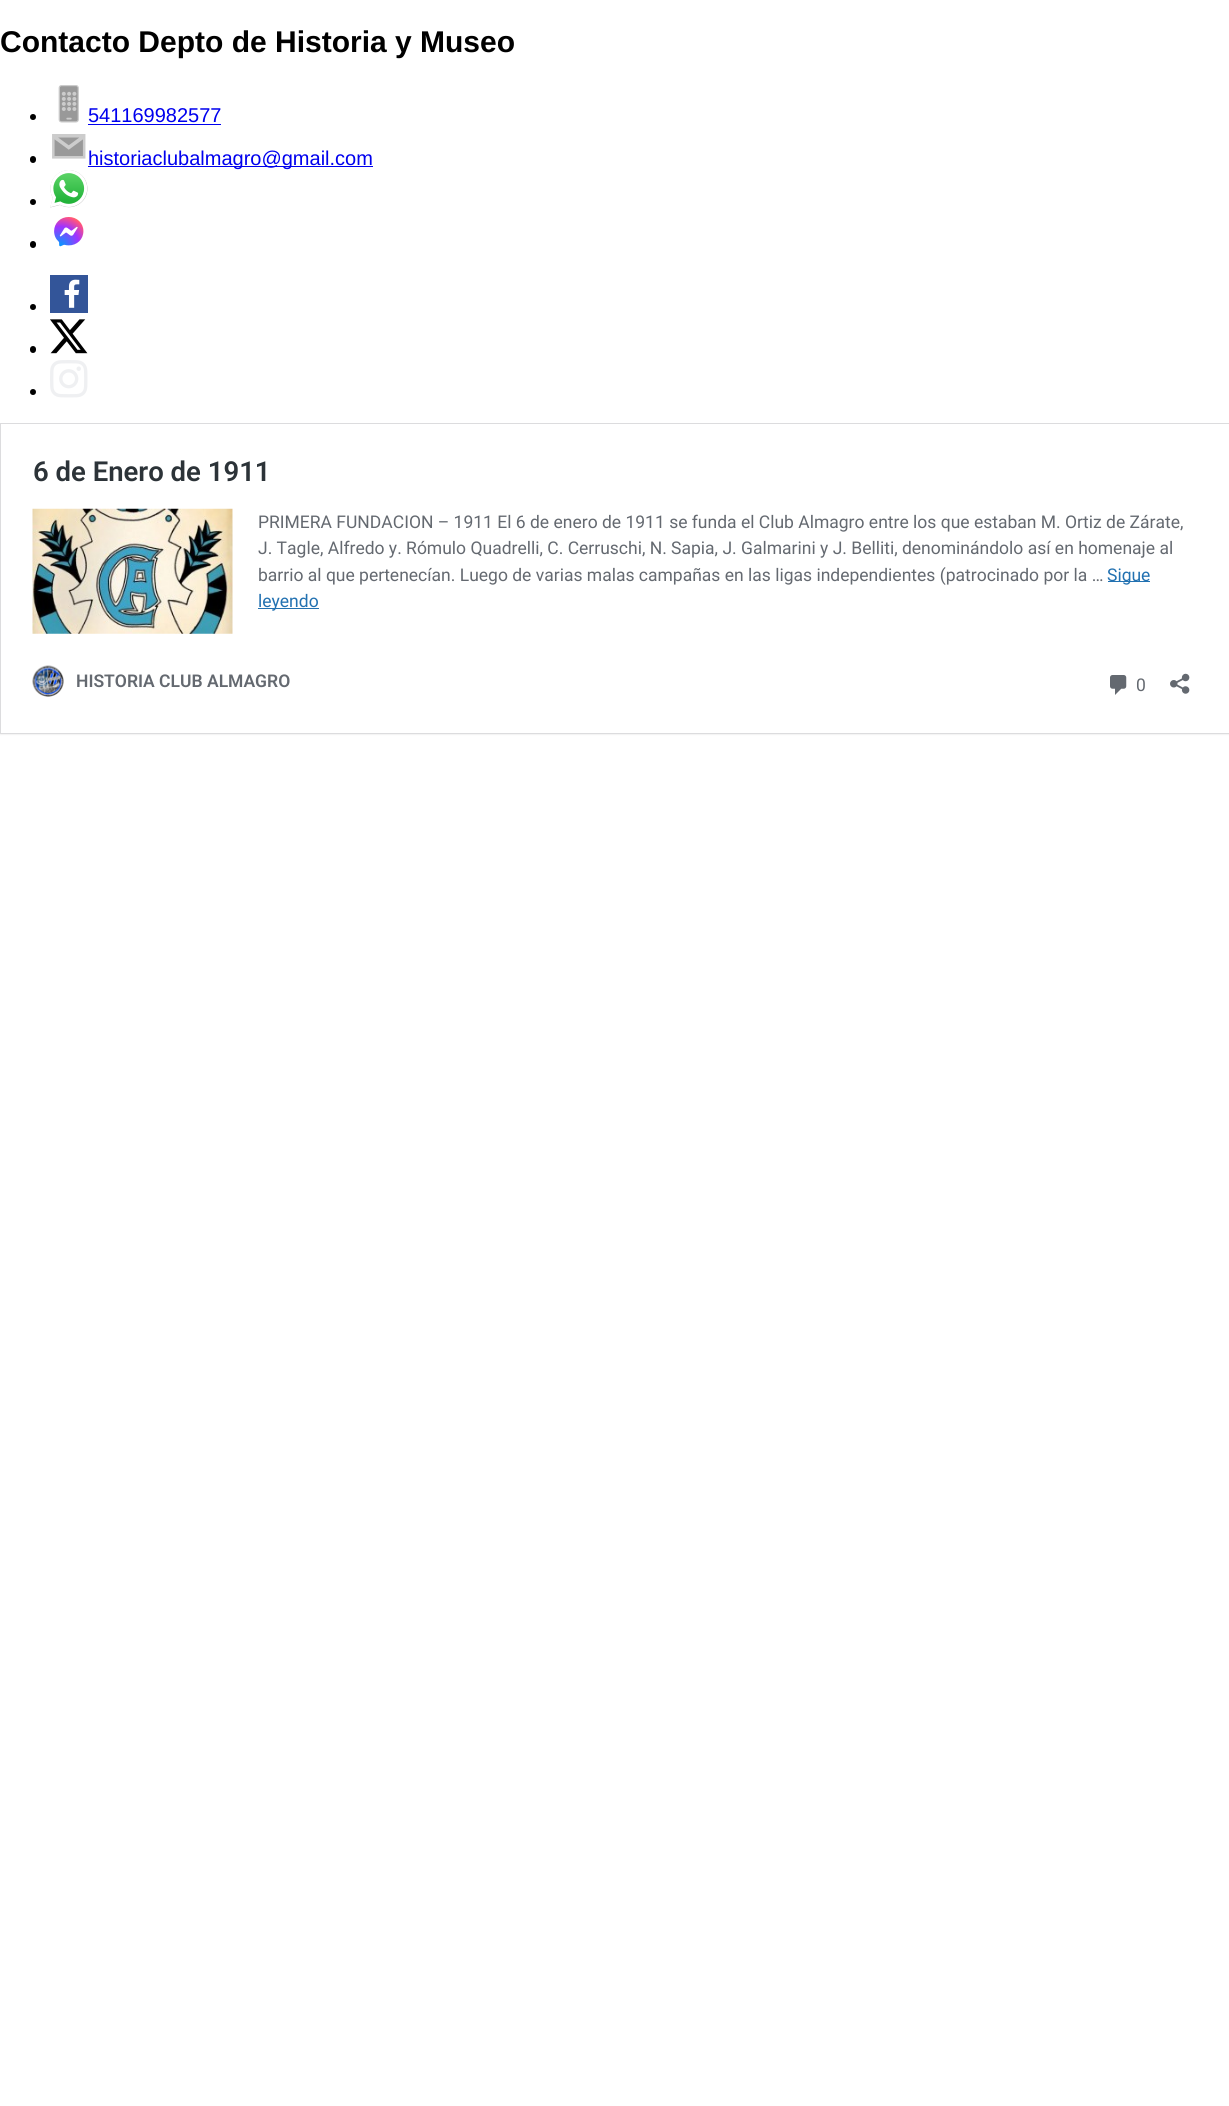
#include <cairo/cairo.h>
#include <math.h>
#include <stddef.h>


static void rounded_rect(cairo_t *cr, double x, double y, double w, double h, double r) {
  cairo_new_sub_path(cr);
  cairo_arc(cr, x + w - r, y + h - r, r, 0, M_PI / 2);
  cairo_arc(cr, x + r, y + h - r, r, M_PI / 2, M_PI);
  cairo_arc(cr, x + r, y + r, r, M_PI, 1.5 * M_PI);
  cairo_arc(cr, x + w - r, y + r, r, 1.5 * M_PI, 2 * M_PI);
  cairo_close_path(cr);
}

static void draw_shadow(cairo_t *cr, double x, double y, double w, double h, double r, double blur, double alpha) {
  cairo_push_group_with_content(cr, CAIRO_CONTENT_ALPHA);
  cairo_set_operator(cr, CAIRO_OPERATOR_SOURCE);
  for (int i = 15; i >= -15 && fmin(w, h) + blur * i / 3 > 0; i -= 2) {
    double e = blur * i / 6;
    cairo_set_source_rgba(cr, 0, 0, 0, alpha * erfc((i - 1) / 8.5) / 2);
    rounded_rect(cr, x - e, y - e, w + 2 * e, h + 2 * e, fmax(0, fmin(r + e + blur * .6, fmin(w, h) / 2 + e)));
    cairo_fill(cr);
  }
  cairo_pattern_t *soft = cairo_pop_group(cr);
  cairo_mask(cr, soft);
  cairo_pattern_destroy(soft);
}

static void draw_image(cairo_t *cr, const char *path, double x, double y, double w, double h) {
  cairo_surface_t *image = cairo_image_surface_create_from_png(path);
  cairo_save(cr);
  cairo_set_source_surface(cr, image, x, y);
  cairo_rectangle(cr, x, y, w, h);
  cairo_fill(cr);
  cairo_restore(cr);
  cairo_surface_destroy(image);
}

static void draw(cairo_t *cr) {
  cairo_set_source_rgb(cr, 1, 1, 1);
  cairo_paint(cr);
  cairo_set_source_rgb(cr, 0, 0, 0);
  cairo_arc(cr, 33, 117, 3, 0, 2 * M_PI);
  cairo_fill(cr);
  draw_image(cr, "images/1.png", 58, 85, 21, 38);
  cairo_set_source_rgb(cr, 0, 0, 238 / 255.0);
  cairo_rectangle(cr, 88, 124, 133, 1);
  cairo_fill(cr);
  cairo_set_source_rgb(cr, 0, 0, 0);
  rounded_rect(cr, 30, 156, 6, 7, 3);
  cairo_fill(cr);
  draw_image(cr, "images/2.png", 52, 134, 34, 25);
  cairo_set_source_rgb(cr, 0, 0, 238 / 255.0);
  cairo_rectangle(cr, 88, 166, 285, 1);
  cairo_fill(cr);
  cairo_set_source_rgb(cr, 0, 0, 0);
  cairo_arc(cr, 33, 202, 3, 0, 2 * M_PI);
  cairo_fill(cr);
  draw_image(cr, "images/3.png", 50, 170, 38, 38);
  rounded_rect(cr, 30, 241, 6, 7, 3);
  cairo_fill(cr);
  draw_image(cr, "images/4.png", 54, 217, 30, 30);
  cairo_arc(cr, 33, 307, 3, 0, 2 * M_PI);
  cairo_fill(cr);
  draw_image(cr, "images/5.png", 50, 275, 38, 38);
  rounded_rect(cr, 30, 346, 6, 7, 3);
  cairo_fill(cr);
  draw_image(cr, "images/6.png", 50, 319, 38, 35);
  cairo_arc(cr, 33, 392, 3, 0, 2 * M_PI);
  cairo_fill(cr);
  draw_image(cr, "images/7.png", 50, 360, 38, 38);
  cairo_set_source_rgb(cr, 0, 0, 0);
  draw_shadow(cr, 0, 424, 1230, 311, 0, 0.5, 0.05);
  cairo_set_source_rgb(cr, 1, 1, 1);
  cairo_rectangle(cr, 0.5, 423.5, 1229, 310);
  cairo_fill_preserve(cr);
  cairo_set_source_rgb(cr, 220 / 255.0, 220 / 255.0, 222 / 255.0);
  cairo_set_line_width(cr, 1);
  cairo_stroke(cr);
  draw_image(cr, "images/8.png", 32, 508, 201, 126);
  cairo_set_source_rgb(cr, 34 / 255.0, 113 / 255.0, 177 / 255.0);
  cairo_rectangle(cr, 1108, 581, 42, 1);
  cairo_fill(cr);
  cairo_rectangle(cr, 258, 608, 61, 1);
  cairo_fill(cr);
  draw_image(cr, "images/9.png", 32, 665, 32, 32);
  draw_image(cr, "images/10.png", 1110, 675, 17, 20);
  draw_image(cr, "images/11.png", 1170, 673, 20, 21);
  cairo_select_font_face(cr, "Liberation Sans", CAIRO_FONT_SLANT_NORMAL, CAIRO_FONT_WEIGHT_BOLD);
  cairo_set_font_size(cr, 30);
  cairo_set_source_rgb(cr, 0, 0, 0);
  cairo_move_to(cr, 0, 52);
  cairo_show_text(cr, "Contacto Depto de Historia y Museo");
  cairo_select_font_face(cr, "Liberation Sans", CAIRO_FONT_SLANT_NORMAL, CAIRO_FONT_WEIGHT_NORMAL);
  cairo_set_font_size(cr, 20);
  cairo_set_source_rgb(cr, 0, 0, 238 / 255.0);
  cairo_move_to(cr, 88, 122);
  cairo_show_text(cr, "541169982577");
  cairo_move_to(cr, 88, 165);
  cairo_show_text(cr, "historiaclubalmagro@gmail.com");
  cairo_select_font_face(cr, "Roboto SemiBold", CAIRO_FONT_SLANT_NORMAL, CAIRO_FONT_WEIGHT_NORMAL);
  cairo_set_font_size(cr, 27.5);
  cairo_set_source_rgb(cr, 44 / 255.0, 51 / 255.0, 56 / 255.0);
  cairo_move_to(cr, 33, 481);
  cairo_show_text(cr, "6 de Enero de 1911");
  cairo_select_font_face(cr, "Roboto", CAIRO_FONT_SLANT_NORMAL, CAIRO_FONT_WEIGHT_NORMAL);
  cairo_set_font_size(cr, 17.5);
  cairo_set_source_rgb(cr, 100 / 255.0, 105 / 255.0, 112 / 255.0);
  cairo_move_to(cr, 258, 528);
  cairo_show_text(cr, "PRIMERA FUNDACION – 1911 El 6 de enero de 1911 se funda el Club Almagro entre los que estaban M. Ortiz de Zárate,");
  cairo_move_to(cr, 258, 554);
  cairo_show_text(cr, "J. Tagle, Alfredo y. Rómulo Quadrelli, C. Cerruschi, N. Sapia, J. Galmarini y J. Belliti, denominándolo así en homenaje al");
  cairo_move_to(cr, 258, 581);
  cairo_show_text(cr, "barrio al que pertenecían. Luego de varias malas campañas en las ligas independientes (patrocinado por la …");
  cairo_set_source_rgb(cr, 34 / 255.0, 113 / 255.0, 177 / 255.0);
  cairo_move_to(cr, 1107, 581);
  cairo_show_text(cr, "Sigue");
  cairo_move_to(cr, 258, 607);
  cairo_show_text(cr, "leyendo");
  cairo_select_font_face(cr, "Roboto SemiBold", CAIRO_FONT_SLANT_NORMAL, CAIRO_FONT_WEIGHT_NORMAL);
  cairo_set_source_rgb(cr, 100 / 255.0, 105 / 255.0, 112 / 255.0);
  cairo_move_to(cr, 76, 687);
  cairo_show_text(cr, "HISTORIA CLUB ALMAGRO");
  cairo_select_font_face(cr, "Roboto", CAIRO_FONT_SLANT_NORMAL, CAIRO_FONT_WEIGHT_NORMAL);
  cairo_move_to(cr, 1136, 691);
  cairo_show_text(cr, "0");
}

int main(void) {
  cairo_surface_t *surface = cairo_image_surface_create(CAIRO_FORMAT_RGB24, 1229, 2106);
  cairo_t *cr = cairo_create(surface);
  cairo_font_options_t *options = cairo_font_options_create();
  cairo_font_options_set_hint_metrics(options, CAIRO_HINT_METRICS_OFF);
  cairo_font_options_set_hint_style(options, CAIRO_HINT_STYLE_NONE);
  cairo_set_font_options(cr, options);
  cairo_set_miter_limit(cr, 4);
  draw(cr);
  cairo_surface_write_to_png(surface, "out.png");
  cairo_font_options_destroy(options);
  cairo_destroy(cr);
  cairo_surface_destroy(surface);
  return 0;
}
